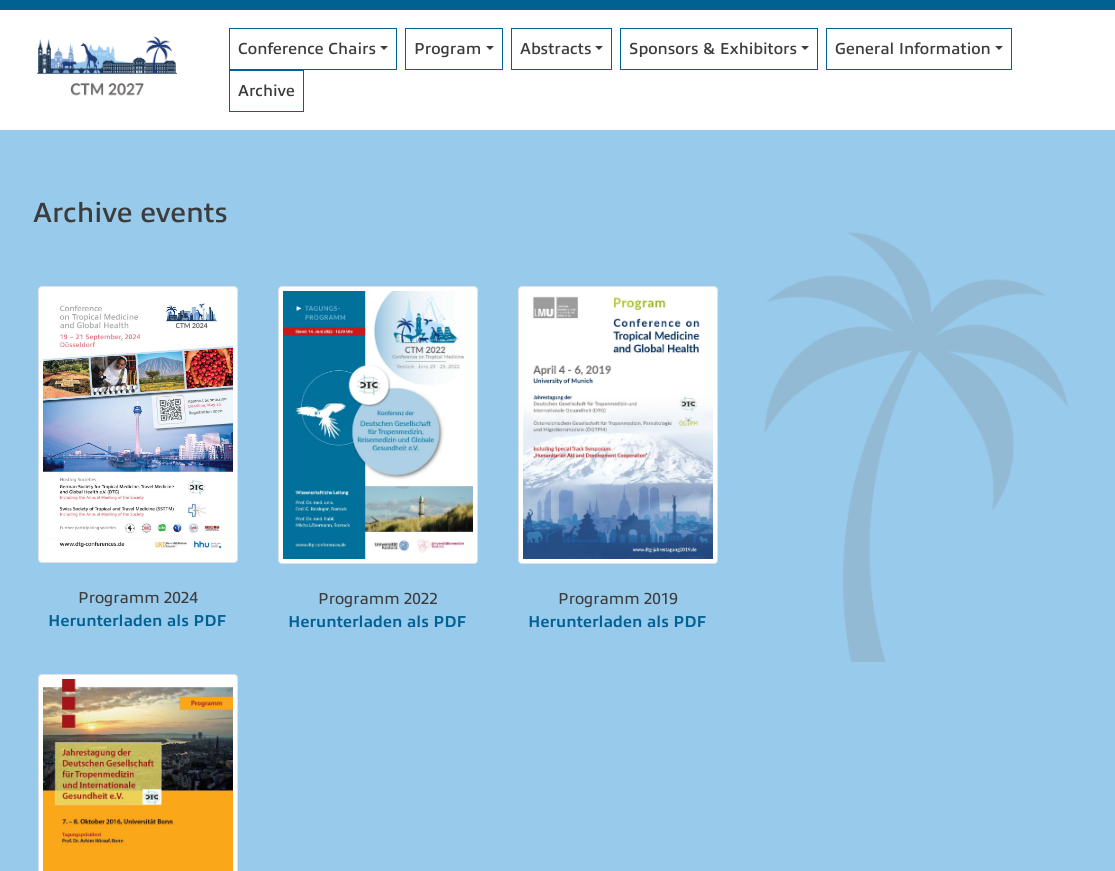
#include <cairo/cairo.h>
#include <math.h>
#include <stddef.h>


static void rounded_rect(cairo_t *cr, double x, double y, double w, double h, double r) {
  cairo_new_sub_path(cr);
  cairo_arc(cr, x + w - r, y + h - r, r, 0, M_PI / 2);
  cairo_arc(cr, x + r, y + h - r, r, M_PI / 2, M_PI);
  cairo_arc(cr, x + r, y + r, r, M_PI, 1.5 * M_PI);
  cairo_arc(cr, x + w - r, y + r, r, 1.5 * M_PI, 2 * M_PI);
  cairo_close_path(cr);
}

static void draw_image(cairo_t *cr, const char *path, double x, double y, double w, double h) {
  cairo_surface_t *image = cairo_image_surface_create_from_png(path);
  cairo_save(cr);
  cairo_set_source_surface(cr, image, x, y);
  cairo_rectangle(cr, x, y, w, h);
  cairo_fill(cr);
  cairo_restore(cr);
  cairo_surface_destroy(image);
}

static void draw(cairo_t *cr) {
  cairo_set_source_rgb(cr, 152 / 255.0, 202 / 255.0, 235 / 255.0);
  cairo_paint(cr);
  cairo_set_source_rgb(cr, 1, 1, 1);
  cairo_rectangle(cr, 0, 10, 1115, 120);
  cairo_fill(cr);
  cairo_set_source_rgb(cr, 1 / 255.0, 97 / 255.0, 147 / 255.0);
  cairo_rectangle(cr, 0, 0, 1115, 10);
  cairo_fill(cr);
  draw_image(cr, "images/1.png", 37, 36, 140, 60);
  cairo_rectangle(cr, 229.5, 28.5, 167, 41);
  cairo_set_line_width(cr, 1);
  cairo_stroke(cr);
  cairo_set_source_rgb(cr, 60 / 255.0, 60 / 255.0, 60 / 255.0);
  cairo_new_path(cr);
  cairo_move_to(cr, 380, 46);
  cairo_line_to(cr, 388, 46);
  cairo_line_to(cr, 384, 50);
  cairo_close_path(cr);
  cairo_fill(cr);
  cairo_rectangle(cr, 405.5, 28.5, 97, 41);
  cairo_set_source_rgb(cr, 1 / 255.0, 97 / 255.0, 147 / 255.0);
  cairo_stroke(cr);
  cairo_set_source_rgb(cr, 60 / 255.0, 60 / 255.0, 60 / 255.0);
  cairo_new_path(cr);
  cairo_move_to(cr, 486, 46);
  cairo_line_to(cr, 494, 46);
  cairo_line_to(cr, 490, 50);
  cairo_close_path(cr);
  cairo_fill(cr);
  cairo_rectangle(cr, 511.5, 28.5, 100, 41);
  cairo_set_source_rgb(cr, 1 / 255.0, 97 / 255.0, 147 / 255.0);
  cairo_stroke(cr);
  cairo_set_source_rgb(cr, 60 / 255.0, 60 / 255.0, 60 / 255.0);
  cairo_new_path(cr);
  cairo_move_to(cr, 595, 46);
  cairo_line_to(cr, 603, 46);
  cairo_line_to(cr, 599, 50);
  cairo_close_path(cr);
  cairo_fill(cr);
  cairo_rectangle(cr, 620.5, 28.5, 197, 41);
  cairo_set_source_rgb(cr, 1 / 255.0, 97 / 255.0, 147 / 255.0);
  cairo_stroke(cr);
  cairo_set_source_rgb(cr, 60 / 255.0, 60 / 255.0, 60 / 255.0);
  cairo_new_path(cr);
  cairo_move_to(cr, 801, 46);
  cairo_line_to(cr, 809, 46);
  cairo_line_to(cr, 805, 50);
  cairo_close_path(cr);
  cairo_fill(cr);
  cairo_rectangle(cr, 826.5, 28.5, 185, 41);
  cairo_set_source_rgb(cr, 1 / 255.0, 97 / 255.0, 147 / 255.0);
  cairo_stroke(cr);
  cairo_set_source_rgb(cr, 60 / 255.0, 60 / 255.0, 60 / 255.0);
  cairo_new_path(cr);
  cairo_move_to(cr, 995, 46);
  cairo_line_to(cr, 1003, 46);
  cairo_line_to(cr, 999, 50);
  cairo_close_path(cr);
  cairo_fill(cr);
  cairo_rectangle(cr, 229.5, 70.5, 74, 41);
  cairo_set_source_rgb(cr, 1 / 255.0, 97 / 255.0, 147 / 255.0);
  cairo_stroke(cr);
  cairo_set_source_rgb(cr, 1, 1, 1);
  rounded_rect(cr, 38.5, 286.5, 199, 276, 3.5);
  cairo_fill_preserve(cr);
  cairo_set_source_rgb(cr, 222 / 255.0, 226 / 255.0, 230 / 255.0);
  cairo_stroke(cr);
  draw_image(cr, "images/2.png", 43, 303, 190, 247);
  cairo_set_source_rgb(cr, 1, 1, 1);
  rounded_rect(cr, 278.5, 286.5, 199, 277, 3.5);
  cairo_fill_preserve(cr);
  cairo_set_source_rgb(cr, 222 / 255.0, 226 / 255.0, 230 / 255.0);
  cairo_stroke(cr);
  draw_image(cr, "images/3.png", 283, 291, 190, 268);
  cairo_set_source_rgb(cr, 1, 1, 1);
  rounded_rect(cr, 518.5, 286.5, 199, 277, 3.5);
  cairo_fill_preserve(cr);
  cairo_set_source_rgb(cr, 222 / 255.0, 226 / 255.0, 230 / 255.0);
  cairo_stroke(cr);
  draw_image(cr, "images/4.png", 523, 295, 190, 264);
  cairo_set_source_rgb(cr, 1, 1, 1);
  rounded_rect(cr, 38.5, 674.5, 199, 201, 3.5);
  cairo_fill_preserve(cr);
  cairo_set_source_rgb(cr, 222 / 255.0, 226 / 255.0, 230 / 255.0);
  cairo_stroke(cr);
  draw_image(cr, "images/5.png", 43, 679, 190, 192);
  draw_image(cr, "images/6.png", 764, 232, 304, 430);
  cairo_select_font_face(cr, "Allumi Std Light", CAIRO_FONT_SLANT_NORMAL, CAIRO_FONT_WEIGHT_BOLD);
  cairo_set_font_size(cr, 16);
  cairo_set_source_rgb(cr, 60 / 255.0, 60 / 255.0, 60 / 255.0);
  cairo_move_to(cr, 238, 54);
  cairo_show_text(cr, "Conference Chairs");
  cairo_move_to(cr, 414, 54);
  cairo_show_text(cr, "Program");
  cairo_move_to(cr, 520, 54);
  cairo_show_text(cr, "Abstracts");
  cairo_move_to(cr, 629, 54);
  cairo_show_text(cr, "Sponsors & Exhibitors");
  cairo_move_to(cr, 835, 54);
  cairo_show_text(cr, "General Information");
  cairo_move_to(cr, 238, 96);
  cairo_show_text(cr, "Archive");
  cairo_set_font_size(cr, 28);
  cairo_move_to(cr, 33, 222);
  cairo_show_text(cr, "Archive events");
  cairo_select_font_face(cr, "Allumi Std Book", CAIRO_FONT_SLANT_NORMAL, CAIRO_FONT_WEIGHT_NORMAL);
  cairo_set_font_size(cr, 16);
  cairo_move_to(cr, 78, 603);
  cairo_show_text(cr, "Programm 2024");
  cairo_select_font_face(cr, "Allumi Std", CAIRO_FONT_SLANT_NORMAL, CAIRO_FONT_WEIGHT_BOLD);
  cairo_set_source_rgb(cr, 1 / 255.0, 97 / 255.0, 147 / 255.0);
  cairo_move_to(cr, 48, 626);
  cairo_show_text(cr, "Herunterladen als PDF");
  cairo_select_font_face(cr, "Allumi Std Book", CAIRO_FONT_SLANT_NORMAL, CAIRO_FONT_WEIGHT_NORMAL);
  cairo_set_source_rgb(cr, 60 / 255.0, 60 / 255.0, 60 / 255.0);
  cairo_move_to(cr, 318, 604);
  cairo_show_text(cr, "Programm 2022");
  cairo_select_font_face(cr, "Allumi Std", CAIRO_FONT_SLANT_NORMAL, CAIRO_FONT_WEIGHT_BOLD);
  cairo_set_source_rgb(cr, 1 / 255.0, 97 / 255.0, 147 / 255.0);
  cairo_move_to(cr, 288, 627);
  cairo_show_text(cr, "Herunterladen als PDF");
  cairo_select_font_face(cr, "Allumi Std Book", CAIRO_FONT_SLANT_NORMAL, CAIRO_FONT_WEIGHT_NORMAL);
  cairo_set_source_rgb(cr, 60 / 255.0, 60 / 255.0, 60 / 255.0);
  cairo_move_to(cr, 558, 604);
  cairo_show_text(cr, "Programm 2019");
  cairo_select_font_face(cr, "Allumi Std", CAIRO_FONT_SLANT_NORMAL, CAIRO_FONT_WEIGHT_BOLD);
  cairo_set_source_rgb(cr, 1 / 255.0, 97 / 255.0, 147 / 255.0);
  cairo_move_to(cr, 528, 627);
  cairo_show_text(cr, "Herunterladen als PDF");
}

int main(void) {
  cairo_surface_t *surface = cairo_image_surface_create(CAIRO_FORMAT_RGB24, 1115, 871);
  cairo_t *cr = cairo_create(surface);
  cairo_font_options_t *options = cairo_font_options_create();
  cairo_font_options_set_hint_metrics(options, CAIRO_HINT_METRICS_OFF);
  cairo_font_options_set_hint_style(options, CAIRO_HINT_STYLE_NONE);
  cairo_set_font_options(cr, options);
  cairo_set_miter_limit(cr, 4);
  draw(cr);
  cairo_surface_write_to_png(surface, "out.png");
  cairo_font_options_destroy(options);
  cairo_destroy(cr);
  cairo_surface_destroy(surface);
  return 0;
}
